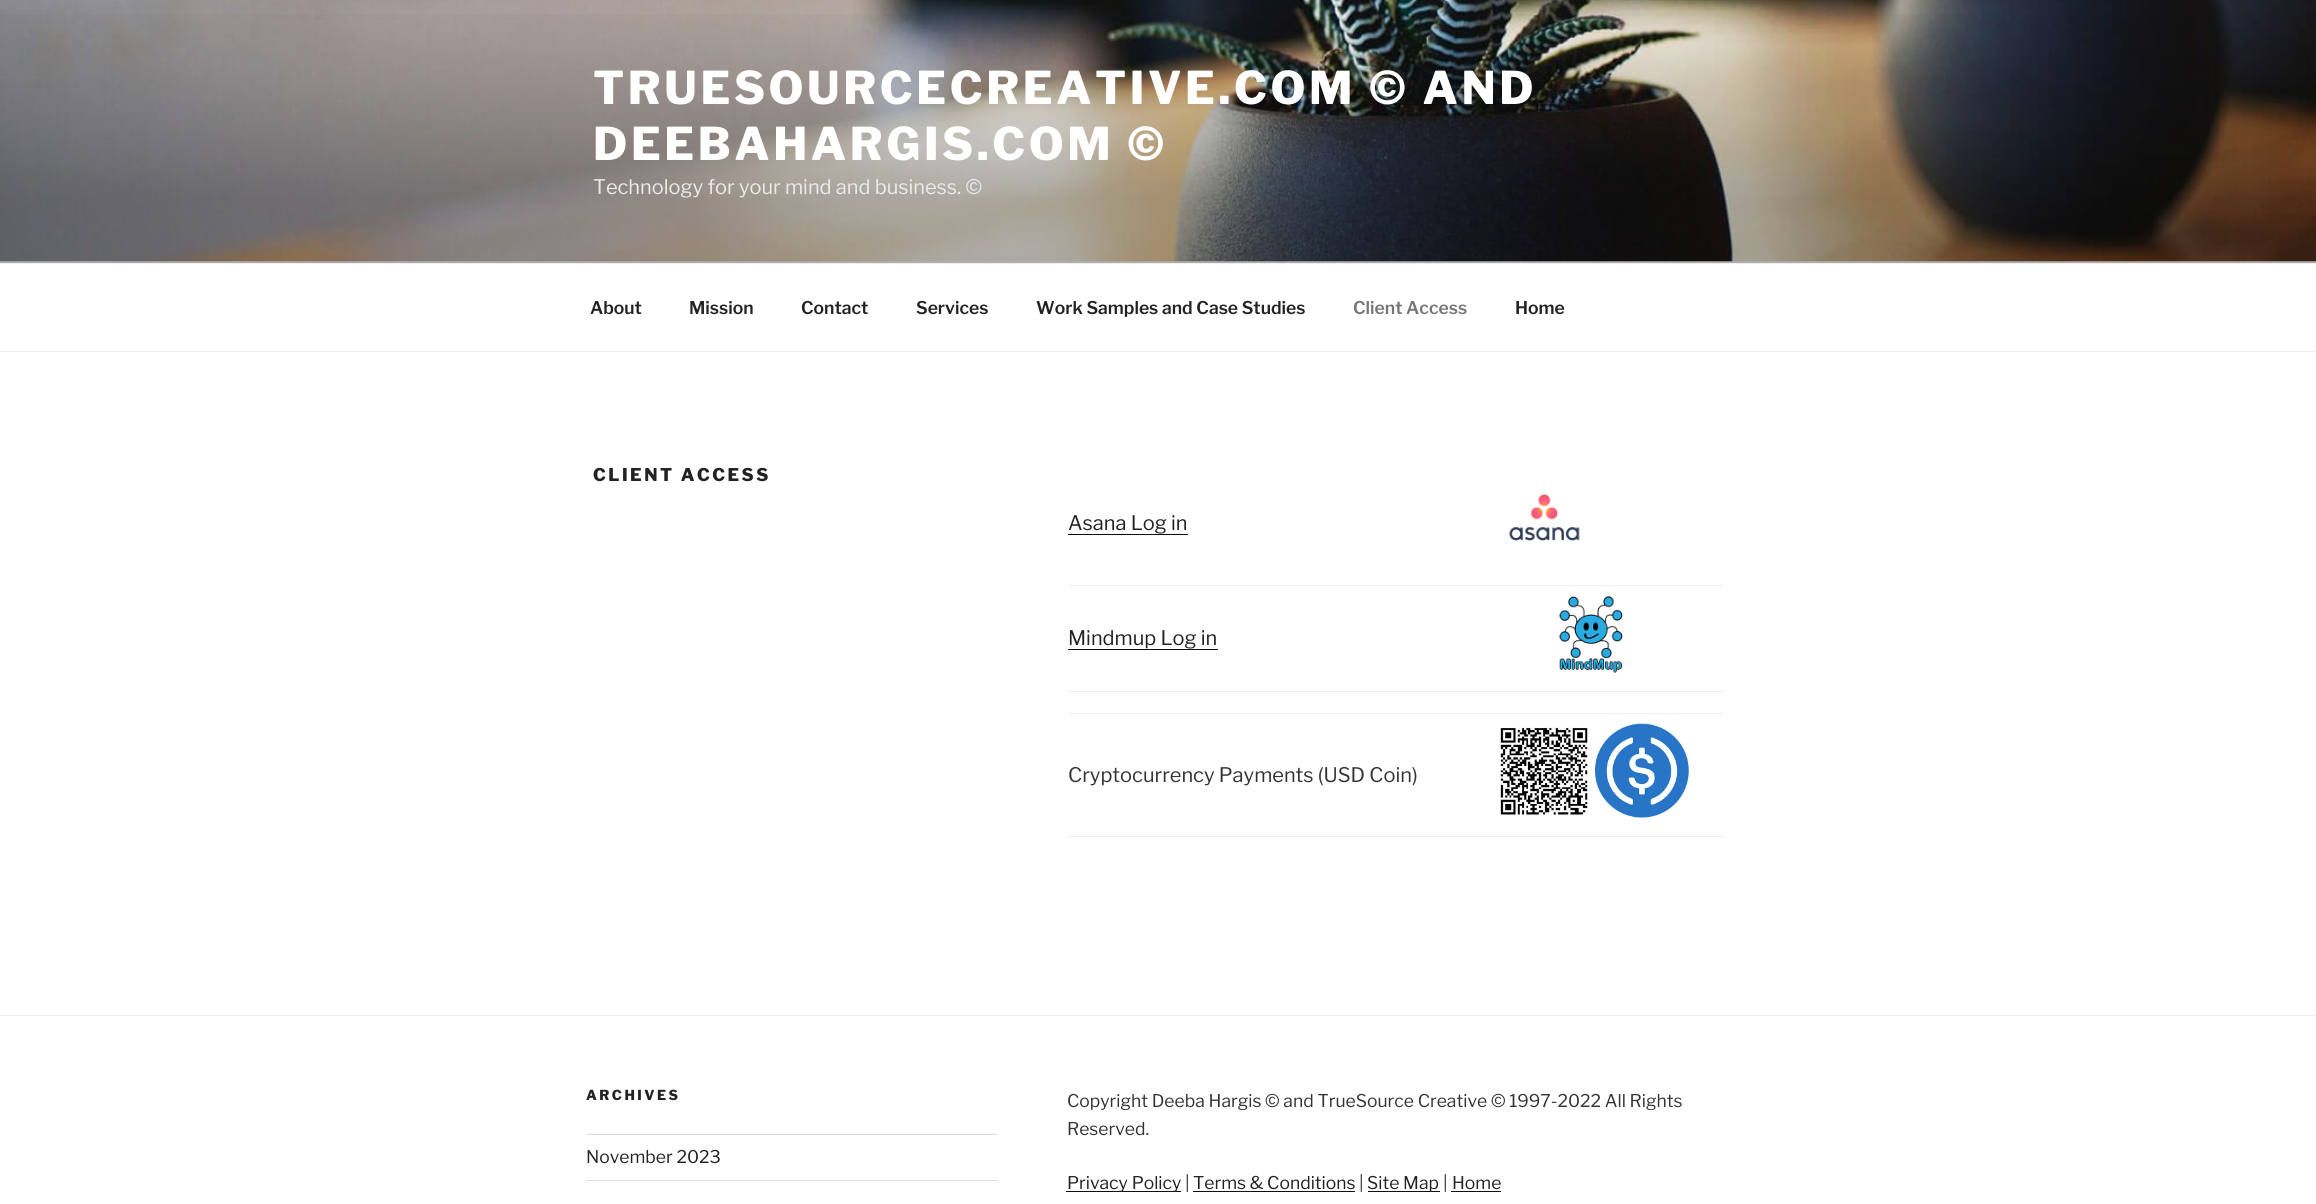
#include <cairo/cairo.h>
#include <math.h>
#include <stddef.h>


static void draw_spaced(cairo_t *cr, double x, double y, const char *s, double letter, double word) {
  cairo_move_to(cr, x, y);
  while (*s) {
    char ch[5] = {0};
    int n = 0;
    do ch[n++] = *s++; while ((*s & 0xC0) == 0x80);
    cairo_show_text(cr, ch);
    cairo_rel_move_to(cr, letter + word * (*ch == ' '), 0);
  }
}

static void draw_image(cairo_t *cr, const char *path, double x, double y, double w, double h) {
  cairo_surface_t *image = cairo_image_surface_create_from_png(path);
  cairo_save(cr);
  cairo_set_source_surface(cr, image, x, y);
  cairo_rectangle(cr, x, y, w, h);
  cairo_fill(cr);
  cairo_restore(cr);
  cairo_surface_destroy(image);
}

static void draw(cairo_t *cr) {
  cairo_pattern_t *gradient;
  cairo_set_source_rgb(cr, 1, 1, 1);
  cairo_paint(cr);
  cairo_set_source_rgb(cr, 250 / 255.0, 250 / 255.0, 250 / 255.0);
  cairo_rectangle(cr, 0, 261, 2316, 2);
  cairo_fill(cr);
  draw_image(cr, "images/1.png", 0, 0, 2316, 262);
  gradient = cairo_pattern_create_linear(1158, 0, 1158, 263);
  cairo_pattern_add_color_stop_rgba(gradient, 0, 0, 0, 0, 0);
  cairo_pattern_add_color_stop_rgba(gradient, 0.75, 0, 0, 0, 0.3);
  cairo_pattern_add_color_stop_rgba(gradient, 1, 0, 0, 0, 0.3);
  cairo_set_source(cr, gradient);
  cairo_pattern_destroy(gradient);
  cairo_rectangle(cr, 0, 14, 2316, 249);
  cairo_fill(cr);
  cairo_set_source_rgb(cr, 238 / 255.0, 238 / 255.0, 238 / 255.0);
  cairo_rectangle(cr, 0, 263, 2316, 1);
  cairo_fill(cr);
  cairo_rectangle(cr, 0, 351, 2316, 1);
  cairo_fill(cr);
  cairo_rectangle(cr, 1068, 585, 656, 1);
  cairo_fill(cr);
  cairo_set_source_rgb(cr, 15 / 255.0, 15 / 255.0, 15 / 255.0);
  cairo_rectangle(cr, 1068, 534, 120, 1);
  cairo_fill(cr);
  draw_image(cr, "images/2.png", 1509, 494, 71, 47);
  cairo_set_source_rgb(cr, 238 / 255.0, 238 / 255.0, 238 / 255.0);
  cairo_rectangle(cr, 1068, 691, 656, 1);
  cairo_fill(cr);
  cairo_set_source_rgb(cr, 15 / 255.0, 15 / 255.0, 15 / 255.0);
  cairo_rectangle(cr, 1068, 649, 150, 1);
  cairo_fill(cr);
  draw_image(cr, "images/3.png", 1559, 596, 65, 77);
  cairo_set_source_rgb(cr, 238 / 255.0, 238 / 255.0, 238 / 255.0);
  cairo_rectangle(cr, 1068, 713, 656, 1);
  cairo_fill(cr);
  cairo_rectangle(cr, 1068, 836, 656, 1);
  cairo_fill(cr);
  draw_image(cr, "images/4.png", 1500, 726, 88, 90);
  draw_image(cr, "images/5.png", 1595, 723, 94, 95);
  cairo_rectangle(cr, 0, 1015, 2316, 1);
  cairo_fill(cr);
  cairo_set_source_rgb(cr, 221 / 255.0, 221 / 255.0, 221 / 255.0);
  cairo_rectangle(cr, 586, 1134, 412, 1);
  cairo_fill(cr);
  cairo_rectangle(cr, 586, 1180, 412, 1);
  cairo_fill(cr);
  cairo_set_source_rgb(cr, 15 / 255.0, 15 / 255.0, 15 / 255.0);
  cairo_rectangle(cr, 1066, 1191, 115, 1);
  cairo_fill(cr);
  cairo_rectangle(cr, 1193, 1191, 162, 1);
  cairo_fill(cr);
  cairo_rectangle(cr, 1368, 1191, 72, 1);
  cairo_fill(cr);
  cairo_rectangle(cr, 1451, 1191, 50, 1);
  cairo_fill(cr);
  cairo_select_font_face(cr, "Libre Franklin ExtraBold", CAIRO_FONT_SLANT_NORMAL, CAIRO_FONT_WEIGHT_NORMAL);
  cairo_set_font_size(cr, 45);
  cairo_set_source_rgb(cr, 1, 1, 1);
  draw_spaced(cr, 593, 104, "TRUESOURCECREATIVE.COM © AND", 3.6, 0);
  draw_spaced(cr, 593, 160, "DEEBAHARGIS.COM ©", 3.6, 0);
  cairo_select_font_face(cr, "Libre Franklin", CAIRO_FONT_SLANT_NORMAL, CAIRO_FONT_WEIGHT_NORMAL);
  cairo_set_font_size(cr, 20);
  cairo_set_source_rgb(cr, 236 / 255.0, 235 / 255.0, 234 / 255.0);
  cairo_move_to(cr, 593, 194);
  cairo_show_text(cr, "Technology for your mind and business. ©");
  cairo_select_font_face(cr, "Libre Franklin SemiBold", CAIRO_FONT_SLANT_NORMAL, CAIRO_FONT_WEIGHT_NORMAL);
  cairo_set_font_size(cr, 17.5);
  cairo_set_source_rgb(cr, 34 / 255.0, 34 / 255.0, 34 / 255.0);
  cairo_move_to(cr, 590, 314);
  cairo_show_text(cr, "About");
  cairo_move_to(cr, 689, 314);
  cairo_show_text(cr, "Mission");
  cairo_move_to(cr, 801, 314);
  cairo_show_text(cr, "Contact");
  cairo_move_to(cr, 916, 314);
  cairo_show_text(cr, "Services");
  cairo_move_to(cr, 1036, 314);
  cairo_show_text(cr, "Work Samples and Case Studies");
  cairo_set_source_rgb(cr, 118 / 255.0, 118 / 255.0, 118 / 255.0);
  cairo_move_to(cr, 1353, 314);
  cairo_show_text(cr, "Client Access");
  cairo_set_source_rgb(cr, 34 / 255.0, 34 / 255.0, 34 / 255.0);
  cairo_move_to(cr, 1515, 314);
  cairo_show_text(cr, "Home");
  cairo_select_font_face(cr, "Libre Franklin ExtraBold", CAIRO_FONT_SLANT_NORMAL, CAIRO_FONT_WEIGHT_NORMAL);
  draw_spaced(cr, 593, 481, "CLIENT ACCESS", 2.5, 0);
  cairo_select_font_face(cr, "Libre Franklin", CAIRO_FONT_SLANT_NORMAL, CAIRO_FONT_WEIGHT_NORMAL);
  cairo_set_font_size(cr, 20);
  cairo_move_to(cr, 1068, 530);
  cairo_show_text(cr, "Asana Log in");
  cairo_move_to(cr, 1068, 645);
  cairo_show_text(cr, "Mindmup Log in");
  cairo_set_source_rgb(cr, 51 / 255.0, 51 / 255.0, 51 / 255.0);
  cairo_move_to(cr, 1068, 782);
  cairo_show_text(cr, "Cryptocurrency Payments (USD Coin)");
  cairo_select_font_face(cr, "Libre Franklin ExtraBold", CAIRO_FONT_SLANT_NORMAL, CAIRO_FONT_WEIGHT_NORMAL);
  cairo_set_font_size(cr, 13.75);
  cairo_set_source_rgb(cr, 34 / 255.0, 34 / 255.0, 34 / 255.0);
  draw_spaced(cr, 586, 1100, "ARCHIVES", 2.5, 0);
  cairo_select_font_face(cr, "Libre Franklin", CAIRO_FONT_SLANT_NORMAL, CAIRO_FONT_WEIGHT_NORMAL);
  cairo_set_font_size(cr, 17.5);
  cairo_move_to(cr, 586, 1163);
  cairo_show_text(cr, "November 2023");
  cairo_set_source_rgb(cr, 51 / 255.0, 51 / 255.0, 51 / 255.0);
  cairo_move_to(cr, 1067, 1107);
  cairo_show_text(cr, "Copyright Deeba Hargis © and TrueSource Creative © 1997-2022 All Rights");
  cairo_move_to(cr, 1067, 1135);
  cairo_show_text(cr, "Reserved.");
  cairo_set_source_rgb(cr, 34 / 255.0, 34 / 255.0, 34 / 255.0);
  cairo_move_to(cr, 1067, 1189);
  cairo_show_text(cr, "Privacy Policy");
  cairo_set_source_rgb(cr, 51 / 255.0, 51 / 255.0, 51 / 255.0);
  cairo_move_to(cr, 1185, 1189);
  cairo_show_text(cr, "|");
  cairo_set_source_rgb(cr, 34 / 255.0, 34 / 255.0, 34 / 255.0);
  cairo_move_to(cr, 1193, 1189);
  cairo_show_text(cr, "Terms & Conditions");
  cairo_set_source_rgb(cr, 51 / 255.0, 51 / 255.0, 51 / 255.0);
  cairo_move_to(cr, 1359, 1189);
  cairo_show_text(cr, "|");
  cairo_set_source_rgb(cr, 34 / 255.0, 34 / 255.0, 34 / 255.0);
  cairo_move_to(cr, 1367, 1189);
  cairo_show_text(cr, "Site Map");
  cairo_set_source_rgb(cr, 51 / 255.0, 51 / 255.0, 51 / 255.0);
  cairo_move_to(cr, 1443, 1189);
  cairo_show_text(cr, "|");
  cairo_set_source_rgb(cr, 34 / 255.0, 34 / 255.0, 34 / 255.0);
  cairo_move_to(cr, 1452, 1189);
  cairo_show_text(cr, "Home");
}

int main(void) {
  cairo_surface_t *surface = cairo_image_surface_create(CAIRO_FORMAT_RGB24, 2316, 1204);
  cairo_t *cr = cairo_create(surface);
  cairo_font_options_t *options = cairo_font_options_create();
  cairo_font_options_set_hint_metrics(options, CAIRO_HINT_METRICS_OFF);
  cairo_font_options_set_hint_style(options, CAIRO_HINT_STYLE_NONE);
  cairo_set_font_options(cr, options);
  cairo_set_miter_limit(cr, 4);
  draw(cr);
  cairo_surface_write_to_png(surface, "out.png");
  cairo_font_options_destroy(options);
  cairo_destroy(cr);
  cairo_surface_destroy(surface);
  return 0;
}
